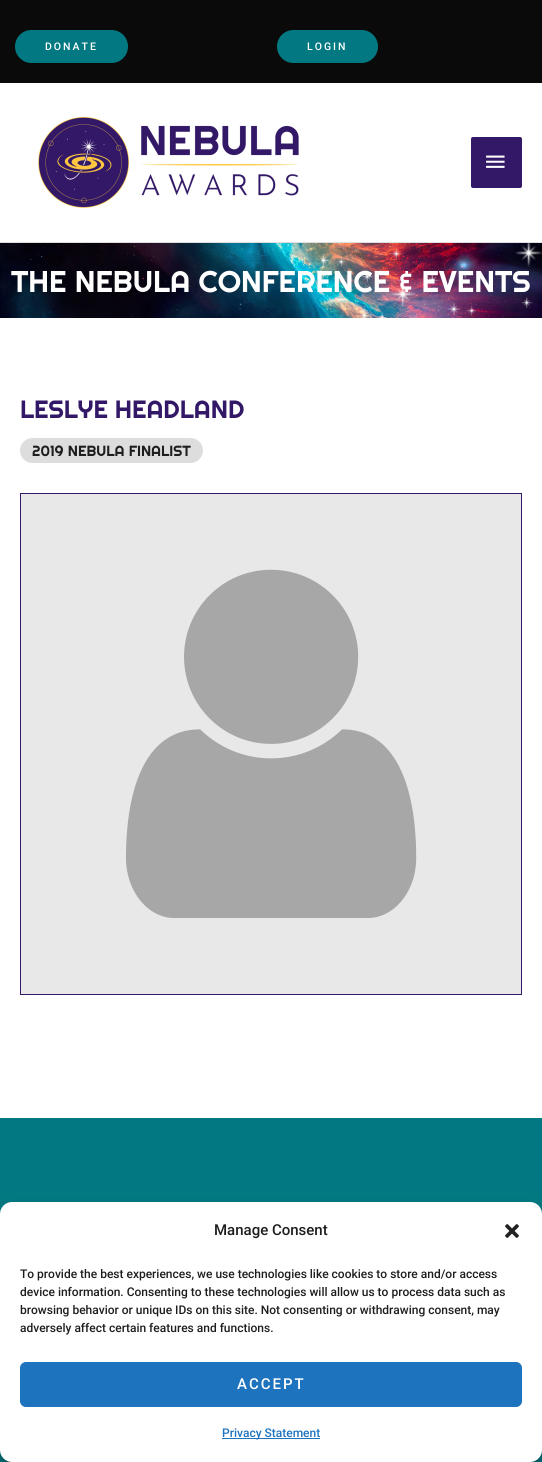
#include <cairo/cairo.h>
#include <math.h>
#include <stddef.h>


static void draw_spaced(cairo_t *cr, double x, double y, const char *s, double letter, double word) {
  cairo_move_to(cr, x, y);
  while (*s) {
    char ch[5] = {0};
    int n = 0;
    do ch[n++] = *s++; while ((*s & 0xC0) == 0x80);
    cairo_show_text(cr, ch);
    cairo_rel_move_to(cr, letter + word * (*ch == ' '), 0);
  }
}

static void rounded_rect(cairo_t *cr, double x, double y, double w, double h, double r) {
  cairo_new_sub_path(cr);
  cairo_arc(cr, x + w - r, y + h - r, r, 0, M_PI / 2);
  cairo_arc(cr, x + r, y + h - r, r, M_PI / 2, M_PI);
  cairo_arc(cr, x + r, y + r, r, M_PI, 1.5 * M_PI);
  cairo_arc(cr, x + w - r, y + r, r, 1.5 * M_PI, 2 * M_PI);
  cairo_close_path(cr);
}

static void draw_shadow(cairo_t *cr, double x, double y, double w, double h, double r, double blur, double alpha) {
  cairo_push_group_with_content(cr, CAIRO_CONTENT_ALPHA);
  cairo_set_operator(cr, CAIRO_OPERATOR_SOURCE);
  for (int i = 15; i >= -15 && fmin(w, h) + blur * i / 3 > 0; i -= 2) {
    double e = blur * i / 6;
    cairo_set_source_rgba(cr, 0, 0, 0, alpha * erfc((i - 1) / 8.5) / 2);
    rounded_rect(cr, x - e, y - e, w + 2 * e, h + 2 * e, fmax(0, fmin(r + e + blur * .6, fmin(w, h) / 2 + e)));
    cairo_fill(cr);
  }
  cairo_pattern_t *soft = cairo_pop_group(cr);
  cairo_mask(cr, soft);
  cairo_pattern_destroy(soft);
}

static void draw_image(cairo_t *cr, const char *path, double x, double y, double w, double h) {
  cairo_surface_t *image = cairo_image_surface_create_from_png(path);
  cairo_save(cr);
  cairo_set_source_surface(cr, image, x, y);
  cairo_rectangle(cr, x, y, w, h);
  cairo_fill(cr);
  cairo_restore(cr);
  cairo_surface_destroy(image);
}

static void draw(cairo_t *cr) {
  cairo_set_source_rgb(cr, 1, 1, 1);
  cairo_paint(cr);
  cairo_set_source_rgb(cr, 10 / 255.0, 10 / 255.0, 10 / 255.0);
  cairo_rectangle(cr, 0, 0, 542, 83);
  cairo_fill(cr);
  cairo_set_source_rgb(cr, 2 / 255.0, 121 / 255.0, 130 / 255.0);
  rounded_rect(cr, 15, 30, 113, 33, 16.5);
  cairo_fill(cr);
  rounded_rect(cr, 277, 30, 101, 33, 16.5);
  cairo_fill(cr);
  draw_image(cr, "images/1.png", 38, 117, 261, 91);
  cairo_set_source_rgb(cr, 50 / 255.0, 24 / 255.0, 102 / 255.0);
  rounded_rect(cr, 471, 137, 51, 51, 2);
  cairo_fill(cr);
  draw_image(cr, "images/2.png", 486, 155, 19, 13);
  draw_image(cr, "images/3.png", 0, 243, 542, 75);
  cairo_set_source_rgb(cr, 221 / 255.0, 221 / 255.0, 221 / 255.0);
  cairo_rectangle(cr, 0, 242, 542, 1);
  cairo_fill(cr);
  rounded_rect(cr, 20, 438, 183, 25, 12.5);
  cairo_fill(cr);
  cairo_rectangle(cr, 20.5, 493.5, 501, 501);
  cairo_set_source_rgb(cr, 50 / 255.0, 24 / 255.0, 102 / 255.0);
  cairo_set_line_width(cr, 1);
  cairo_stroke(cr);
  draw_image(cr, "images/4.png", 21, 494, 500, 500);
  cairo_set_source_rgb(cr, 2 / 255.0, 121 / 255.0, 130 / 255.0);
  cairo_rectangle(cr, 0, 1118, 542, 344);
  cairo_fill(cr);
  cairo_set_source_rgb(cr, 0, 0, 0);
  draw_shadow(cr, 0, 1208, 542, 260, 12, 3, 0.23);
  draw_shadow(cr, 0, 1212, 542, 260, 12, 10, 0.19);
  cairo_set_source_rgb(cr, 1, 1, 1);
  rounded_rect(cr, 0, 1202, 542, 260, 12);
  cairo_fill(cr);
  draw_image(cr, "images/5.png", 505, 1224, 14, 14);
  cairo_set_source_rgb(cr, 30 / 255.0, 115 / 255.0, 190 / 255.0);
  rounded_rect(cr, 20.5, 1362.5, 501, 44, 5.5);
  cairo_fill_preserve(cr);
  cairo_stroke(cr);
  cairo_rectangle(cr, 222, 1438, 98, 1);
  cairo_fill(cr);
  cairo_select_font_face(cr, "Roboto Medium", CAIRO_FONT_SLANT_NORMAL, CAIRO_FONT_WEIGHT_NORMAL);
  cairo_set_font_size(cr, 10.5);
  cairo_set_source_rgb(cr, 1, 1, 1);
  draw_spaced(cr, 45, 50, "DONATE", 2, 0);
  draw_spaced(cr, 307, 50, "LOGIN", 2, 0);
  cairo_select_font_face(cr, "Righteous", CAIRO_FONT_SLANT_NORMAL, CAIRO_FONT_WEIGHT_NORMAL);
  cairo_set_font_size(cr, 30);
  cairo_move_to(cr, 11, 292);
  cairo_show_text(cr, "THE NEBULA CONFERENCE & EVENTS");
  cairo_set_font_size(cr, 25);
  cairo_set_source_rgb(cr, 50 / 255.0, 24 / 255.0, 102 / 255.0);
  cairo_move_to(cr, 20, 418);
  cairo_show_text(cr, "LESLYE HEADLAND");
  cairo_set_font_size(cr, 14.75);
  cairo_set_source_rgb(cr, 30 / 255.0, 30 / 255.0, 30 / 255.0);
  cairo_move_to(cr, 32, 456);
  cairo_show_text(cr, "2019 NEBULA FINALIST");
  cairo_select_font_face(cr, "Roboto Medium", CAIRO_FONT_SLANT_NORMAL, CAIRO_FONT_WEIGHT_NORMAL);
  cairo_set_font_size(cr, 15);
  cairo_move_to(cr, 214, 1235);
  cairo_show_text(cr, "Manage Consent");
  cairo_set_font_size(cr, 12);
  cairo_move_to(cr, 20, 1278);
  cairo_show_text(cr, "To provide the best experiences, we use technologies like cookies to store and/or access");
  cairo_move_to(cr, 20, 1296);
  cairo_show_text(cr, "device information. Consenting to these technologies will allow us to process data such as");
  cairo_move_to(cr, 20, 1314);
  cairo_show_text(cr, "browsing behavior or unique IDs on this site. Not consenting or withdrawing consent, may");
  cairo_move_to(cr, 20, 1332);
  cairo_show_text(cr, "adversely affect certain features and functions.");
  cairo_set_font_size(cr, 15);
  cairo_set_source_rgb(cr, 1, 1, 1);
  draw_spaced(cr, 237, 1389, "ACCEPT", 2, 0);
  cairo_set_font_size(cr, 12);
  cairo_set_source_rgb(cr, 30 / 255.0, 115 / 255.0, 190 / 255.0);
  cairo_move_to(cr, 222, 1437);
  cairo_show_text(cr, "Privacy Statement");
}

int main(void) {
  cairo_surface_t *surface = cairo_image_surface_create(CAIRO_FORMAT_RGB24, 542, 1462);
  cairo_t *cr = cairo_create(surface);
  cairo_font_options_t *options = cairo_font_options_create();
  cairo_font_options_set_hint_metrics(options, CAIRO_HINT_METRICS_OFF);
  cairo_font_options_set_hint_style(options, CAIRO_HINT_STYLE_NONE);
  cairo_set_font_options(cr, options);
  cairo_set_miter_limit(cr, 4);
  draw(cr);
  cairo_surface_write_to_png(surface, "out.png");
  cairo_font_options_destroy(options);
  cairo_destroy(cr);
  cairo_surface_destroy(surface);
  return 0;
}
